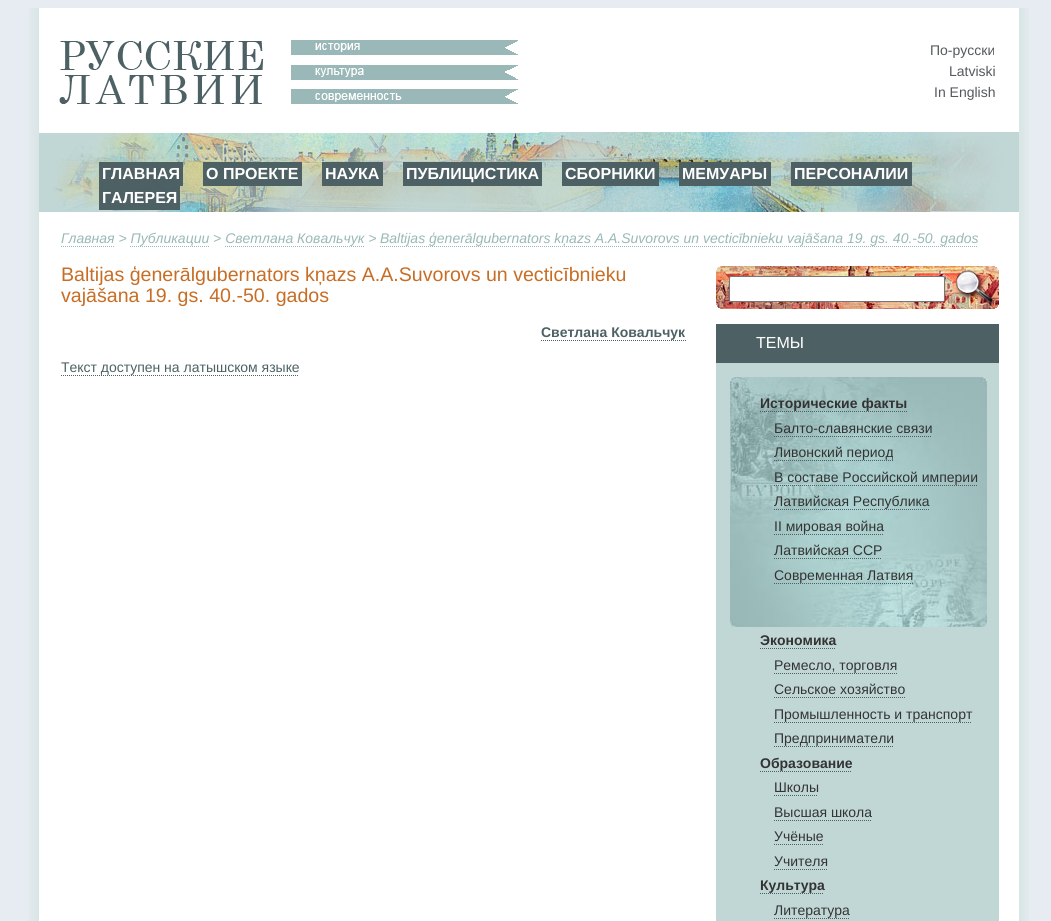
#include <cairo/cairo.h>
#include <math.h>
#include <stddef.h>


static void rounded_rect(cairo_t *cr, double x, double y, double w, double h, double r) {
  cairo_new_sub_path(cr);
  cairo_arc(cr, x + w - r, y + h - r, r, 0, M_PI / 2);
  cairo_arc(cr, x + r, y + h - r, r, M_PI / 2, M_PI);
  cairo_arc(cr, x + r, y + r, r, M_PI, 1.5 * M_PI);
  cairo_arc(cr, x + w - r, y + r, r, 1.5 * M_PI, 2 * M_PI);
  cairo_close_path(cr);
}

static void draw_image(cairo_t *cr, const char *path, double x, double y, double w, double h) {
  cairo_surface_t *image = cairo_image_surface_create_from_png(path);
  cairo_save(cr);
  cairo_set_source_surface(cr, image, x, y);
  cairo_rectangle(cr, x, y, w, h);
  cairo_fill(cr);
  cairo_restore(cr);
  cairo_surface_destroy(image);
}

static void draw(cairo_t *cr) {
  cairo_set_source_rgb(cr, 230 / 255.0, 236 / 255.0, 242 / 255.0);
  cairo_paint(cr);
  draw_image(cr, "images/1.png", 29, 8, 1000, 913);
  draw_image(cr, "images/2.png", 59, 41, 205, 63);
  draw_image(cr, "images/3.png", 291, 40, 227, 64);
  draw_image(cr, "images/4.png", 39, 132, 980, 80);
  cairo_set_source_rgb(cr, 77 / 255.0, 97 / 255.0, 101 / 255.0);
  cairo_rectangle(cr, 99, 162, 84, 24);
  cairo_fill(cr);
  cairo_rectangle(cr, 203, 162, 99, 24);
  cairo_fill(cr);
  cairo_rectangle(cr, 322, 162, 61, 24);
  cairo_fill(cr);
  cairo_rectangle(cr, 403, 162, 139, 24);
  cairo_fill(cr);
  cairo_rectangle(cr, 562, 162, 97, 24);
  cairo_fill(cr);
  cairo_rectangle(cr, 679, 162, 92, 24);
  cairo_fill(cr);
  cairo_rectangle(cr, 791, 162, 121, 24);
  cairo_fill(cr);
  cairo_rectangle(cr, 99, 186, 81, 24);
  cairo_fill(cr);
  cairo_new_path(cr);
  cairo_move_to(cr, 61, 246.5);
  cairo_line_to(cr, 114, 246.5);
  cairo_set_source_rgb(cr, 153 / 255.0, 184 / 255.0, 183 / 255.0);
  cairo_set_line_width(cr, 1);
  cairo_set_dash(cr, (double[]){1, 1}, 2, 0);
  cairo_stroke(cr);
  cairo_new_path(cr);
  cairo_move_to(cr, 380, 246.5);
  cairo_line_to(cr, 978, 246.5);
  cairo_stroke(cr);
  cairo_new_path(cr);
  cairo_move_to(cr, 130, 246.5);
  cairo_line_to(cr, 209, 246.5);
  cairo_stroke(cr);
  cairo_new_path(cr);
  cairo_move_to(cr, 225, 246.5);
  cairo_line_to(cr, 364, 246.5);
  cairo_stroke(cr);
  cairo_new_path(cr);
  cairo_move_to(cr, 541, 340.5);
  cairo_line_to(cr, 686, 340.5);
  cairo_set_source_rgb(cr, 77 / 255.0, 97 / 255.0, 101 / 255.0);
  cairo_stroke(cr);
  cairo_new_path(cr);
  cairo_move_to(cr, 61, 375.5);
  cairo_line_to(cr, 299, 375.5);
  cairo_stroke(cr);
  draw_image(cr, "images/5.png", 716, 266, 283, 43);
  cairo_set_source_rgb(cr, 1, 1, 1);
  rounded_rect(cr, 729.5, 276.5, 215, 25, 1.5);
  cairo_fill_preserve(cr);
  cairo_set_source_rgb(cr, 118 / 255.0, 118 / 255.0, 118 / 255.0);
  cairo_set_dash(cr, NULL, 0, 0);
  cairo_stroke(cr);
  draw_image(cr, "images/6.png", 956, 270, 41, 38);
  cairo_set_source_rgb(cr, 77 / 255.0, 97 / 255.0, 101 / 255.0);
  cairo_rectangle(cr, 716, 324, 283, 39);
  cairo_fill(cr);
  cairo_set_source_rgb(cr, 193 / 255.0, 215 / 255.0, 214 / 255.0);
  cairo_rectangle(cr, 716, 363, 283, 558);
  cairo_fill(cr);
  draw_image(cr, "images/7.png", 730, 377, 257, 250);
  cairo_new_path(cr);
  cairo_move_to(cr, 760, 411.5);
  cairo_line_to(cr, 907, 411.5);
  cairo_set_source_rgb(cr, 77 / 255.0, 97 / 255.0, 101 / 255.0);
  cairo_set_dash(cr, (double[]){1, 1}, 2, 0);
  cairo_stroke(cr);
  cairo_new_path(cr);
  cairo_move_to(cr, 774, 436.5);
  cairo_line_to(cr, 932, 436.5);
  cairo_stroke(cr);
  cairo_new_path(cr);
  cairo_move_to(cr, 774, 460.5);
  cairo_line_to(cr, 893, 460.5);
  cairo_stroke(cr);
  cairo_new_path(cr);
  cairo_move_to(cr, 774, 485.5);
  cairo_line_to(cr, 977, 485.5);
  cairo_stroke(cr);
  cairo_new_path(cr);
  cairo_move_to(cr, 774, 509.5);
  cairo_line_to(cr, 929, 509.5);
  cairo_stroke(cr);
  cairo_new_path(cr);
  cairo_move_to(cr, 774, 534.5);
  cairo_line_to(cr, 883, 534.5);
  cairo_stroke(cr);
  cairo_new_path(cr);
  cairo_move_to(cr, 774, 558.5);
  cairo_line_to(cr, 882, 558.5);
  cairo_stroke(cr);
  cairo_new_path(cr);
  cairo_move_to(cr, 774, 583.5);
  cairo_line_to(cr, 913, 583.5);
  cairo_stroke(cr);
  cairo_new_path(cr);
  cairo_move_to(cr, 760, 648.5);
  cairo_line_to(cr, 836, 648.5);
  cairo_stroke(cr);
  cairo_new_path(cr);
  cairo_move_to(cr, 774, 673.5);
  cairo_line_to(cr, 897, 673.5);
  cairo_stroke(cr);
  cairo_new_path(cr);
  cairo_move_to(cr, 774, 697.5);
  cairo_line_to(cr, 905, 697.5);
  cairo_stroke(cr);
  cairo_new_path(cr);
  cairo_move_to(cr, 774, 722.5);
  cairo_line_to(cr, 972, 722.5);
  cairo_stroke(cr);
  cairo_new_path(cr);
  cairo_move_to(cr, 774, 746.5);
  cairo_line_to(cr, 894, 746.5);
  cairo_stroke(cr);
  cairo_new_path(cr);
  cairo_move_to(cr, 760, 771.5);
  cairo_line_to(cr, 852, 771.5);
  cairo_stroke(cr);
  cairo_new_path(cr);
  cairo_move_to(cr, 774, 795.5);
  cairo_line_to(cr, 818, 795.5);
  cairo_stroke(cr);
  cairo_new_path(cr);
  cairo_move_to(cr, 774, 820.5);
  cairo_line_to(cr, 872, 820.5);
  cairo_stroke(cr);
  cairo_new_path(cr);
  cairo_move_to(cr, 774, 844.5);
  cairo_line_to(cr, 823, 844.5);
  cairo_stroke(cr);
  cairo_new_path(cr);
  cairo_move_to(cr, 774, 869.5);
  cairo_line_to(cr, 827, 869.5);
  cairo_stroke(cr);
  cairo_new_path(cr);
  cairo_move_to(cr, 760, 893.5);
  cairo_line_to(cr, 824, 893.5);
  cairo_stroke(cr);
  cairo_new_path(cr);
  cairo_move_to(cr, 774, 918.5);
  cairo_line_to(cr, 849, 918.5);
  cairo_stroke(cr);
  cairo_select_font_face(cr, "Liberation Sans", CAIRO_FONT_SLANT_NORMAL, CAIRO_FONT_WEIGHT_NORMAL);
  cairo_set_font_size(cr, 14);
  cairo_set_source_rgb(cr, 84 / 255.0, 89 / 255.0, 92 / 255.0);
  cairo_move_to(cr, 930, 55);
  cairo_show_text(cr, "По-русски");
  cairo_move_to(cr, 949, 76);
  cairo_show_text(cr, "Latviski");
  cairo_move_to(cr, 934, 97);
  cairo_show_text(cr, "In English");
  cairo_select_font_face(cr, "Liberation Sans", CAIRO_FONT_SLANT_NORMAL, CAIRO_FONT_WEIGHT_BOLD);
  cairo_set_font_size(cr, 16);
  cairo_set_source_rgb(cr, 1, 1, 1);
  cairo_move_to(cr, 102, 179);
  cairo_show_text(cr, "ГЛАВНАЯ");
  cairo_move_to(cr, 206, 179);
  cairo_show_text(cr, "О ПРОЕКТЕ");
  cairo_move_to(cr, 325, 179);
  cairo_show_text(cr, "НАУКА");
  cairo_move_to(cr, 406, 179);
  cairo_show_text(cr, "ПУБЛИЦИСТИКА");
  cairo_move_to(cr, 565, 179);
  cairo_show_text(cr, "СБОРНИКИ");
  cairo_move_to(cr, 682, 179);
  cairo_show_text(cr, "МЕМУАРЫ");
  cairo_move_to(cr, 794, 179);
  cairo_show_text(cr, "ПЕРСОНАЛИИ");
  cairo_move_to(cr, 102, 203);
  cairo_show_text(cr, "ГАЛЕРЕЯ");
  cairo_select_font_face(cr, "Liberation Sans", CAIRO_FONT_SLANT_ITALIC, CAIRO_FONT_WEIGHT_NORMAL);
  cairo_set_font_size(cr, 14);
  cairo_set_source_rgb(cr, 153 / 255.0, 184 / 255.0, 183 / 255.0);
  cairo_move_to(cr, 61, 243);
  cairo_show_text(cr, "Главная > Публикации > Светлана Ковальчук >");
  cairo_move_to(cr, 380, 243);
  cairo_show_text(cr, "Baltijas ģenerālgubernators kņazs А.A.Suvorovs un vecticībnieku vajāšana 19. gs. 40.-50. gados");
  cairo_select_font_face(cr, "Liberation Sans", CAIRO_FONT_SLANT_NORMAL, CAIRO_FONT_WEIGHT_NORMAL);
  cairo_set_font_size(cr, 19.6);
  cairo_set_source_rgb(cr, 200 / 255.0, 109 / 255.0, 36 / 255.0);
  cairo_move_to(cr, 61, 281);
  cairo_show_text(cr, "Baltijas ģenerālgubernators kņazs А.A.Suvorovs un vecticībnieku");
  cairo_move_to(cr, 61, 302);
  cairo_show_text(cr, "vajāšana 19. gs. 40.-50. gados");
  cairo_select_font_face(cr, "Liberation Sans", CAIRO_FONT_SLANT_NORMAL, CAIRO_FONT_WEIGHT_BOLD);
  cairo_set_font_size(cr, 14);
  cairo_set_source_rgb(cr, 77 / 255.0, 97 / 255.0, 101 / 255.0);
  cairo_move_to(cr, 541, 337);
  cairo_show_text(cr, "Светлана Ковальчук");
  cairo_select_font_face(cr, "Liberation Sans", CAIRO_FONT_SLANT_NORMAL, CAIRO_FONT_WEIGHT_NORMAL);
  cairo_move_to(cr, 61, 372);
  cairo_show_text(cr, "Текст доступен на латышском языке");
  cairo_set_font_size(cr, 16);
  cairo_set_source_rgb(cr, 1, 1, 1);
  cairo_move_to(cr, 756, 348);
  cairo_show_text(cr, "ТЕМЫ");
  cairo_select_font_face(cr, "Liberation Sans", CAIRO_FONT_SLANT_NORMAL, CAIRO_FONT_WEIGHT_BOLD);
  cairo_set_font_size(cr, 14);
  cairo_set_source_rgb(cr, 51 / 255.0, 51 / 255.0, 51 / 255.0);
  cairo_move_to(cr, 760, 408);
  cairo_show_text(cr, "Исторические факты");
  cairo_select_font_face(cr, "Liberation Sans", CAIRO_FONT_SLANT_NORMAL, CAIRO_FONT_WEIGHT_NORMAL);
  cairo_move_to(cr, 774, 433);
  cairo_show_text(cr, "Балто-славянские связи");
  cairo_move_to(cr, 774, 457);
  cairo_show_text(cr, "Ливонский период");
  cairo_move_to(cr, 774, 482);
  cairo_show_text(cr, "В составе Российской империи");
  cairo_move_to(cr, 774, 506);
  cairo_show_text(cr, "Латвийская Республика");
  cairo_move_to(cr, 774, 531);
  cairo_show_text(cr, "II мировая война");
  cairo_move_to(cr, 774, 555);
  cairo_show_text(cr, "Латвийская ССР");
  cairo_move_to(cr, 774, 580);
  cairo_show_text(cr, "Современная Латвия");
  cairo_select_font_face(cr, "Liberation Sans", CAIRO_FONT_SLANT_NORMAL, CAIRO_FONT_WEIGHT_BOLD);
  cairo_move_to(cr, 760, 645);
  cairo_show_text(cr, "Экономика");
  cairo_select_font_face(cr, "Liberation Sans", CAIRO_FONT_SLANT_NORMAL, CAIRO_FONT_WEIGHT_NORMAL);
  cairo_move_to(cr, 774, 670);
  cairo_show_text(cr, "Ремесло, торговля");
  cairo_move_to(cr, 774, 694);
  cairo_show_text(cr, "Сельское хозяйство");
  cairo_move_to(cr, 774, 719);
  cairo_show_text(cr, "Промышленность и транспорт");
  cairo_move_to(cr, 774, 743);
  cairo_show_text(cr, "Предприниматели");
  cairo_select_font_face(cr, "Liberation Sans", CAIRO_FONT_SLANT_NORMAL, CAIRO_FONT_WEIGHT_BOLD);
  cairo_move_to(cr, 760, 768);
  cairo_show_text(cr, "Образование");
  cairo_select_font_face(cr, "Liberation Sans", CAIRO_FONT_SLANT_NORMAL, CAIRO_FONT_WEIGHT_NORMAL);
  cairo_move_to(cr, 774, 792);
  cairo_show_text(cr, "Школы");
  cairo_move_to(cr, 774, 817);
  cairo_show_text(cr, "Высшая школа");
  cairo_move_to(cr, 774, 841);
  cairo_show_text(cr, "Учёные");
  cairo_move_to(cr, 774, 866);
  cairo_show_text(cr, "Учителя");
  cairo_select_font_face(cr, "Liberation Sans", CAIRO_FONT_SLANT_NORMAL, CAIRO_FONT_WEIGHT_BOLD);
  cairo_move_to(cr, 760, 890);
  cairo_show_text(cr, "Культура");
  cairo_select_font_face(cr, "Liberation Sans", CAIRO_FONT_SLANT_NORMAL, CAIRO_FONT_WEIGHT_NORMAL);
  cairo_move_to(cr, 774, 915);
  cairo_show_text(cr, "Литература");
}

int main(void) {
  cairo_surface_t *surface = cairo_image_surface_create(CAIRO_FORMAT_RGB24, 1051, 921);
  cairo_t *cr = cairo_create(surface);
  cairo_font_options_t *options = cairo_font_options_create();
  cairo_font_options_set_hint_metrics(options, CAIRO_HINT_METRICS_OFF);
  cairo_font_options_set_hint_style(options, CAIRO_HINT_STYLE_NONE);
  cairo_set_font_options(cr, options);
  cairo_set_miter_limit(cr, 4);
  draw(cr);
  cairo_surface_write_to_png(surface, "out.png");
  cairo_font_options_destroy(options);
  cairo_destroy(cr);
  cairo_surface_destroy(surface);
  return 0;
}
